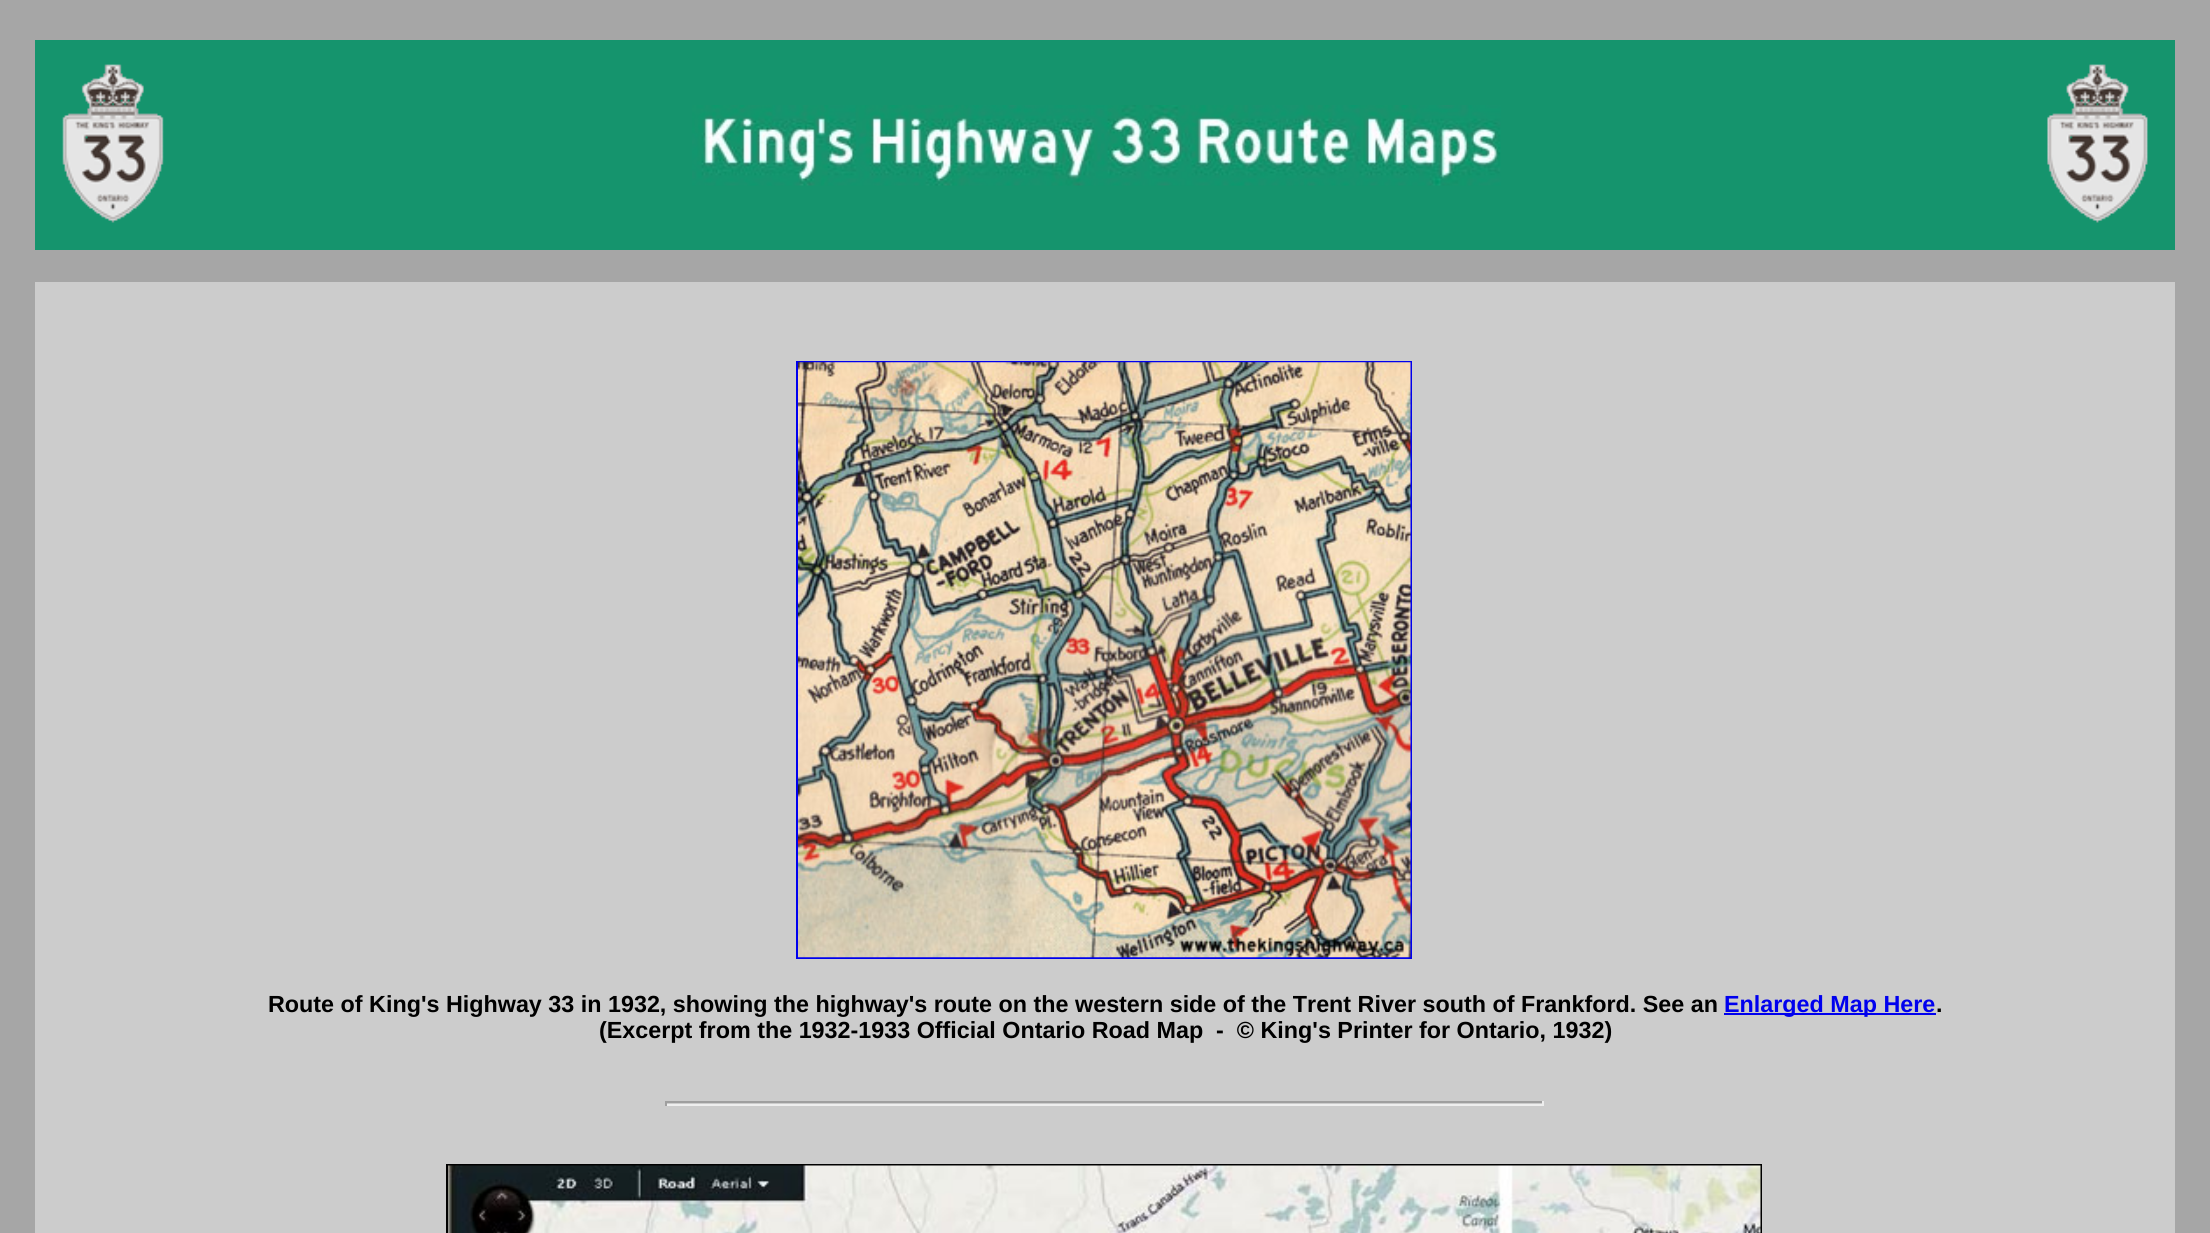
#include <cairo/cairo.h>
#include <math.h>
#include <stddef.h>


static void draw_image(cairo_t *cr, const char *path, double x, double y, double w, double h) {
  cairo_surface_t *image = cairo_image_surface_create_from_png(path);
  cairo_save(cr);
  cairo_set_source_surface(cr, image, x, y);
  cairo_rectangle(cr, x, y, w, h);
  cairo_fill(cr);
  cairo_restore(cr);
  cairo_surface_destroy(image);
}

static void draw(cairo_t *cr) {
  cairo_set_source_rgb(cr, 166 / 255.0, 166 / 255.0, 166 / 255.0);
  cairo_paint(cr);
  cairo_set_source_rgb(cr, 21 / 255.0, 148 / 255.0, 109 / 255.0);
  cairo_rectangle(cr, 35, 40, 2140, 210);
  cairo_fill(cr);
  draw_image(cr, "images/1.png", 62, 64, 102, 159);
  draw_image(cr, "images/2.png", 692, 105, 809, 81);
  draw_image(cr, "images/3.png", 2047, 64, 101, 159);
  cairo_set_source_rgb(cr, 204 / 255.0, 204 / 255.0, 204 / 255.0);
  cairo_rectangle(cr, 35, 282, 2140, 951);
  cairo_fill(cr);
  cairo_rectangle(cr, 797, 362, 614, 596);
  cairo_set_source_rgb(cr, 0, 0, 238 / 255.0);
  cairo_stroke(cr);
  draw_image(cr, "images/4.png", 798, 362, 613, 596);
  cairo_rectangle(cr, 1724, 1013, 212, 2);
  cairo_fill(cr);
  cairo_set_source_rgb(cr, 159 / 255.0, 159 / 255.0, 159 / 255.0);
  cairo_rectangle(cr, 665, 1101, 879, 2);
  cairo_fill(cr);
  cairo_set_source_rgb(cr, 238 / 255.0, 238 / 255.0, 238 / 255.0);
  cairo_rectangle(cr, 1542, 1101, 2, 5);
  cairo_fill(cr);
  cairo_rectangle(cr, 665, 1104, 879, 2);
  cairo_fill(cr);
  cairo_set_source_rgb(cr, 159 / 255.0, 159 / 255.0, 159 / 255.0);
  cairo_rectangle(cr, 665, 1101, 2, 5);
  cairo_fill(cr);
  cairo_rectangle(cr, 447, 1165, 1314, 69);
  cairo_set_source_rgb(cr, 0, 0, 0);
  cairo_stroke(cr);
  draw_image(cr, "images/5.png", 448, 1165, 1313, 68);
  cairo_select_font_face(cr, "Liberation Sans", CAIRO_FONT_SLANT_NORMAL, CAIRO_FONT_WEIGHT_BOLD);
  cairo_set_font_size(cr, 23.33);
  cairo_move_to(cr, 268, 1012);
  cairo_show_text(cr, "Route of King's Highway 33 in 1932, showing the highway's route on the western side of the Trent River south of Frankford. See an");
  cairo_set_source_rgb(cr, 0, 0, 238 / 255.0);
  cairo_move_to(cr, 1724, 1012);
  cairo_show_text(cr, "Enlarged Map Here");
  cairo_set_source_rgb(cr, 0, 0, 0);
  cairo_move_to(cr, 1936, 1012);
  cairo_show_text(cr, ".");
  cairo_move_to(cr, 599, 1038);
  cairo_show_text(cr, "(Excerpt from the 1932-1933 Official Ontario Road Map  -  © King's Printer for Ontario, 1932)");
}

int main(void) {
  cairo_surface_t *surface = cairo_image_surface_create(CAIRO_FORMAT_RGB24, 2210, 1233);
  cairo_t *cr = cairo_create(surface);
  cairo_font_options_t *options = cairo_font_options_create();
  cairo_font_options_set_hint_metrics(options, CAIRO_HINT_METRICS_OFF);
  cairo_font_options_set_hint_style(options, CAIRO_HINT_STYLE_NONE);
  cairo_set_font_options(cr, options);
  cairo_set_miter_limit(cr, 4);
  draw(cr);
  cairo_surface_write_to_png(surface, "out.png");
  cairo_font_options_destroy(options);
  cairo_destroy(cr);
  cairo_surface_destroy(surface);
  return 0;
}
